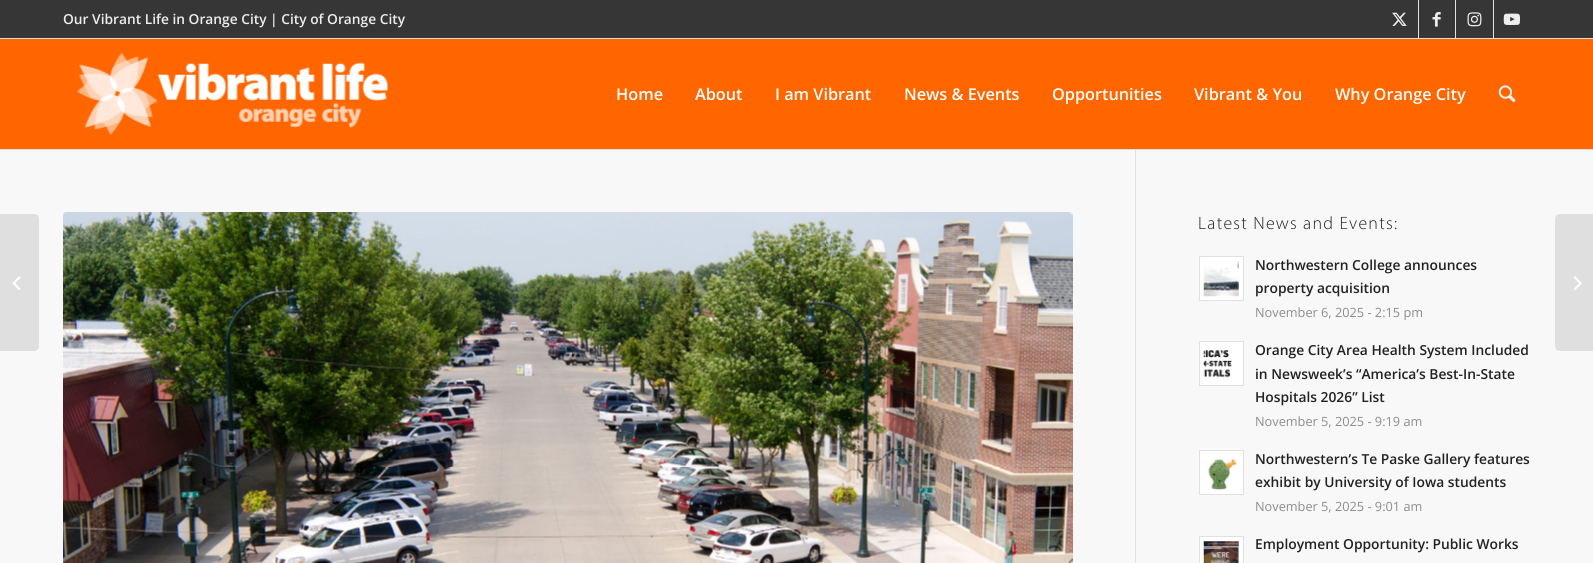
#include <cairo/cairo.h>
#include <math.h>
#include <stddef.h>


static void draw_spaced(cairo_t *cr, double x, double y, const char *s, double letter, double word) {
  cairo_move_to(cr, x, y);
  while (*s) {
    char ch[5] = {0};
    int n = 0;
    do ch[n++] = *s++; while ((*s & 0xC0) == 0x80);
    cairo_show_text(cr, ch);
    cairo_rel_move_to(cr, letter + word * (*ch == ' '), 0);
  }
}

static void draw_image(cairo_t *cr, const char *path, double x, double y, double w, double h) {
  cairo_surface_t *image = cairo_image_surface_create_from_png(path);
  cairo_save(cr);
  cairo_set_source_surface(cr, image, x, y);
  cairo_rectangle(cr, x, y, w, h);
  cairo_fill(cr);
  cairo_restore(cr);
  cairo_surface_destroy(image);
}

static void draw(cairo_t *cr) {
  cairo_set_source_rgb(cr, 1, 102 / 255.0, 0);
  cairo_paint(cr);
  cairo_set_source_rgb(cr, 54 / 255.0, 54 / 255.0, 54 / 255.0);
  cairo_rectangle(cr, 0, 0, 1593, 38);
  cairo_fill(cr);
  cairo_set_source_rgb(cr, 225 / 255.0, 225 / 255.0, 225 / 255.0);
  cairo_rectangle(cr, 0, 38, 1593, 1);
  cairo_fill(cr);
  cairo_rectangle(cr, 1418, 0, 1, 38);
  cairo_fill(cr);
  draw_image(cr, "images/1.png", 1392, 12, 15, 14);
  cairo_rectangle(cr, 1455, 0, 1, 38);
  cairo_fill(cr);
  draw_image(cr, "images/2.png", 1432, 12, 9, 15);
  cairo_rectangle(cr, 1493, 0, 1, 38);
  cairo_fill(cr);
  draw_image(cr, "images/3.png", 1467, 12, 15, 15);
  draw_image(cr, "images/4.png", 1503, 13, 17, 12);
  cairo_rectangle(cr, 0, 149, 1593, 1);
  cairo_fill(cr);
  draw_image(cr, "images/5.png", 77, 52, 311, 83);
  draw_image(cr, "images/6.png", 1498, 85, 18, 18);
  cairo_set_source_rgb(cr, 248 / 255.0, 248 / 255.0, 248 / 255.0);
  cairo_rectangle(cr, 0, 150, 1593, 413);
  cairo_fill(cr);
  cairo_set_source_rgb(cr, 223 / 255.0, 223 / 255.0, 223 / 255.0);
  cairo_new_path(cr);
  cairo_move_to(cr, 0, 214);
  cairo_line_to(cr, 34, 214);
  cairo_curve_to(cr, 37, 214, 39, 216, 39, 219);
  cairo_line_to(cr, 39, 346);
  cairo_curve_to(cr, 39, 349, 37, 351, 34, 351);
  cairo_line_to(cr, 0, 351);
  cairo_close_path(cr);
  cairo_fill(cr);
  draw_image(cr, "images/7.png", 12, 276, 9, 14);
  cairo_set_source_rgb(cr, 225 / 255.0, 225 / 255.0, 225 / 255.0);
  cairo_rectangle(cr, 1135, 150, 1, 413);
  cairo_fill(cr);
  draw_image(cr, "images/8.png", 63, 212, 1010, 351);
  cairo_set_source_rgb(cr, 1, 1, 1);
  cairo_rectangle(cr, 1199.5, 256.5, 44, 44);
  cairo_fill_preserve(cr);
  cairo_set_source_rgb(cr, 225 / 255.0, 225 / 255.0, 225 / 255.0);
  cairo_set_line_width(cr, 1);
  cairo_stroke(cr);
  draw_image(cr, "images/9.png", 1203, 261, 36, 36);
  cairo_set_source_rgb(cr, 1, 1, 1);
  cairo_rectangle(cr, 1199.5, 341.5, 44, 44);
  cairo_fill_preserve(cr);
  cairo_set_source_rgb(cr, 225 / 255.0, 225 / 255.0, 225 / 255.0);
  cairo_stroke(cr);
  draw_image(cr, "images/10.png", 1203, 350, 29, 28);
  cairo_set_source_rgb(cr, 1, 1, 1);
  cairo_rectangle(cr, 1199.5, 450.5, 44, 44);
  cairo_fill_preserve(cr);
  cairo_set_source_rgb(cr, 225 / 255.0, 225 / 255.0, 225 / 255.0);
  cairo_stroke(cr);
  draw_image(cr, "images/11.png", 1208, 458, 29, 32);
  cairo_set_source_rgb(cr, 1, 1, 1);
  cairo_rectangle(cr, 1199.5, 536.5, 44, 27);
  cairo_fill_preserve(cr);
  cairo_set_source_rgb(cr, 225 / 255.0, 225 / 255.0, 225 / 255.0);
  cairo_stroke(cr);
  draw_image(cr, "images/12.png", 1203, 541, 36, 22);
  cairo_set_source_rgb(cr, 223 / 255.0, 223 / 255.0, 223 / 255.0);
  cairo_new_path(cr);
  cairo_move_to(cr, 1560, 214);
  cairo_line_to(cr, 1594, 214);
  cairo_line_to(cr, 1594, 351);
  cairo_line_to(cr, 1560, 351);
  cairo_curve_to(cr, 1557, 351, 1555, 349, 1555, 346);
  cairo_line_to(cr, 1555, 219);
  cairo_curve_to(cr, 1555, 216, 1557, 214, 1560, 214);
  cairo_close_path(cr);
  cairo_fill(cr);
  draw_image(cr, "images/13.png", 1573, 276, 9, 14);
  cairo_select_font_face(cr, "Open Sans SemiBold", CAIRO_FONT_SLANT_NORMAL, CAIRO_FONT_WEIGHT_NORMAL);
  cairo_set_font_size(cr, 13.75);
  cairo_set_source_rgb(cr, 238 / 255.0, 238 / 255.0, 238 / 255.0);
  cairo_move_to(cr, 63, 24);
  cairo_show_text(cr, "Our Vibrant Life in Orange City | City of Orange City");
  cairo_set_font_size(cr, 16.25);
  cairo_set_source_rgb(cr, 1, 1, 1);
  cairo_move_to(cr, 616, 100);
  cairo_show_text(cr, "Home");
  cairo_move_to(cr, 695, 100);
  cairo_show_text(cr, "About");
  cairo_move_to(cr, 775, 100);
  cairo_show_text(cr, "I am Vibrant");
  cairo_move_to(cr, 904, 100);
  cairo_show_text(cr, "News & Events");
  cairo_move_to(cr, 1052, 100);
  cairo_show_text(cr, "Opportunities");
  cairo_move_to(cr, 1194, 100);
  cairo_show_text(cr, "Vibrant & You");
  cairo_move_to(cr, 1335, 100);
  cairo_show_text(cr, "Why Orange City");
  cairo_select_font_face(cr, "Myriad Light", CAIRO_FONT_SLANT_NORMAL, CAIRO_FONT_WEIGHT_NORMAL);
  cairo_set_font_size(cr, 17.9);
  cairo_set_source_rgb(cr, 34 / 255.0, 34 / 255.0, 34 / 255.0);
  draw_spaced(cr, 1198, 229, "Latest News and Events:", 1.25, 0);
  cairo_select_font_face(cr, "Open Sans SemiBold", CAIRO_FONT_SLANT_NORMAL, CAIRO_FONT_WEIGHT_NORMAL);
  cairo_set_font_size(cr, 13.8);
  cairo_move_to(cr, 1255, 270);
  cairo_show_text(cr, "Northwestern College announces");
  cairo_move_to(cr, 1255, 293);
  cairo_show_text(cr, "property acquisition");
  cairo_select_font_face(cr, "Open Sans", CAIRO_FONT_SLANT_NORMAL, CAIRO_FONT_WEIGHT_NORMAL);
  cairo_set_font_size(cr, 12.75);
  cairo_set_source_rgb(cr, 141 / 255.0, 141 / 255.0, 141 / 255.0);
  cairo_move_to(cr, 1255, 317);
  cairo_show_text(cr, "November 6, 2025 - 2:15 pm");
  cairo_select_font_face(cr, "Open Sans SemiBold", CAIRO_FONT_SLANT_NORMAL, CAIRO_FONT_WEIGHT_NORMAL);
  cairo_set_font_size(cr, 13.8);
  cairo_set_source_rgb(cr, 34 / 255.0, 34 / 255.0, 34 / 255.0);
  cairo_move_to(cr, 1255, 355);
  cairo_show_text(cr, "Orange City Area Health System Included");
  cairo_move_to(cr, 1255, 379);
  cairo_show_text(cr, "in Newsweek’s “America’s Best-In-State");
  cairo_move_to(cr, 1255, 402);
  cairo_show_text(cr, "Hospitals 2026” List");
  cairo_select_font_face(cr, "Open Sans", CAIRO_FONT_SLANT_NORMAL, CAIRO_FONT_WEIGHT_NORMAL);
  cairo_set_font_size(cr, 12.75);
  cairo_set_source_rgb(cr, 141 / 255.0, 141 / 255.0, 141 / 255.0);
  cairo_move_to(cr, 1255, 426);
  cairo_show_text(cr, "November 5, 2025 - 9:19 am");
  cairo_select_font_face(cr, "Open Sans SemiBold", CAIRO_FONT_SLANT_NORMAL, CAIRO_FONT_WEIGHT_NORMAL);
  cairo_set_font_size(cr, 13.8);
  cairo_set_source_rgb(cr, 34 / 255.0, 34 / 255.0, 34 / 255.0);
  cairo_move_to(cr, 1255, 464);
  cairo_show_text(cr, "Northwestern’s Te Paske Gallery features");
  cairo_move_to(cr, 1255, 487);
  cairo_show_text(cr, "exhibit by University of Iowa students");
  cairo_select_font_face(cr, "Open Sans", CAIRO_FONT_SLANT_NORMAL, CAIRO_FONT_WEIGHT_NORMAL);
  cairo_set_font_size(cr, 12.75);
  cairo_set_source_rgb(cr, 141 / 255.0, 141 / 255.0, 141 / 255.0);
  cairo_move_to(cr, 1255, 511);
  cairo_show_text(cr, "November 5, 2025 - 9:01 am");
  cairo_select_font_face(cr, "Open Sans SemiBold", CAIRO_FONT_SLANT_NORMAL, CAIRO_FONT_WEIGHT_NORMAL);
  cairo_set_font_size(cr, 13.8);
  cairo_set_source_rgb(cr, 34 / 255.0, 34 / 255.0, 34 / 255.0);
  cairo_move_to(cr, 1255, 549);
  cairo_show_text(cr, "Employment Opportunity: Public Works");
}

int main(void) {
  cairo_surface_t *surface = cairo_image_surface_create(CAIRO_FORMAT_RGB24, 1593, 563);
  cairo_t *cr = cairo_create(surface);
  cairo_font_options_t *options = cairo_font_options_create();
  cairo_font_options_set_hint_metrics(options, CAIRO_HINT_METRICS_OFF);
  cairo_font_options_set_hint_style(options, CAIRO_HINT_STYLE_NONE);
  cairo_set_font_options(cr, options);
  cairo_set_miter_limit(cr, 4);
  draw(cr);
  cairo_surface_write_to_png(surface, "out.png");
  cairo_font_options_destroy(options);
  cairo_destroy(cr);
  cairo_surface_destroy(surface);
  return 0;
}
